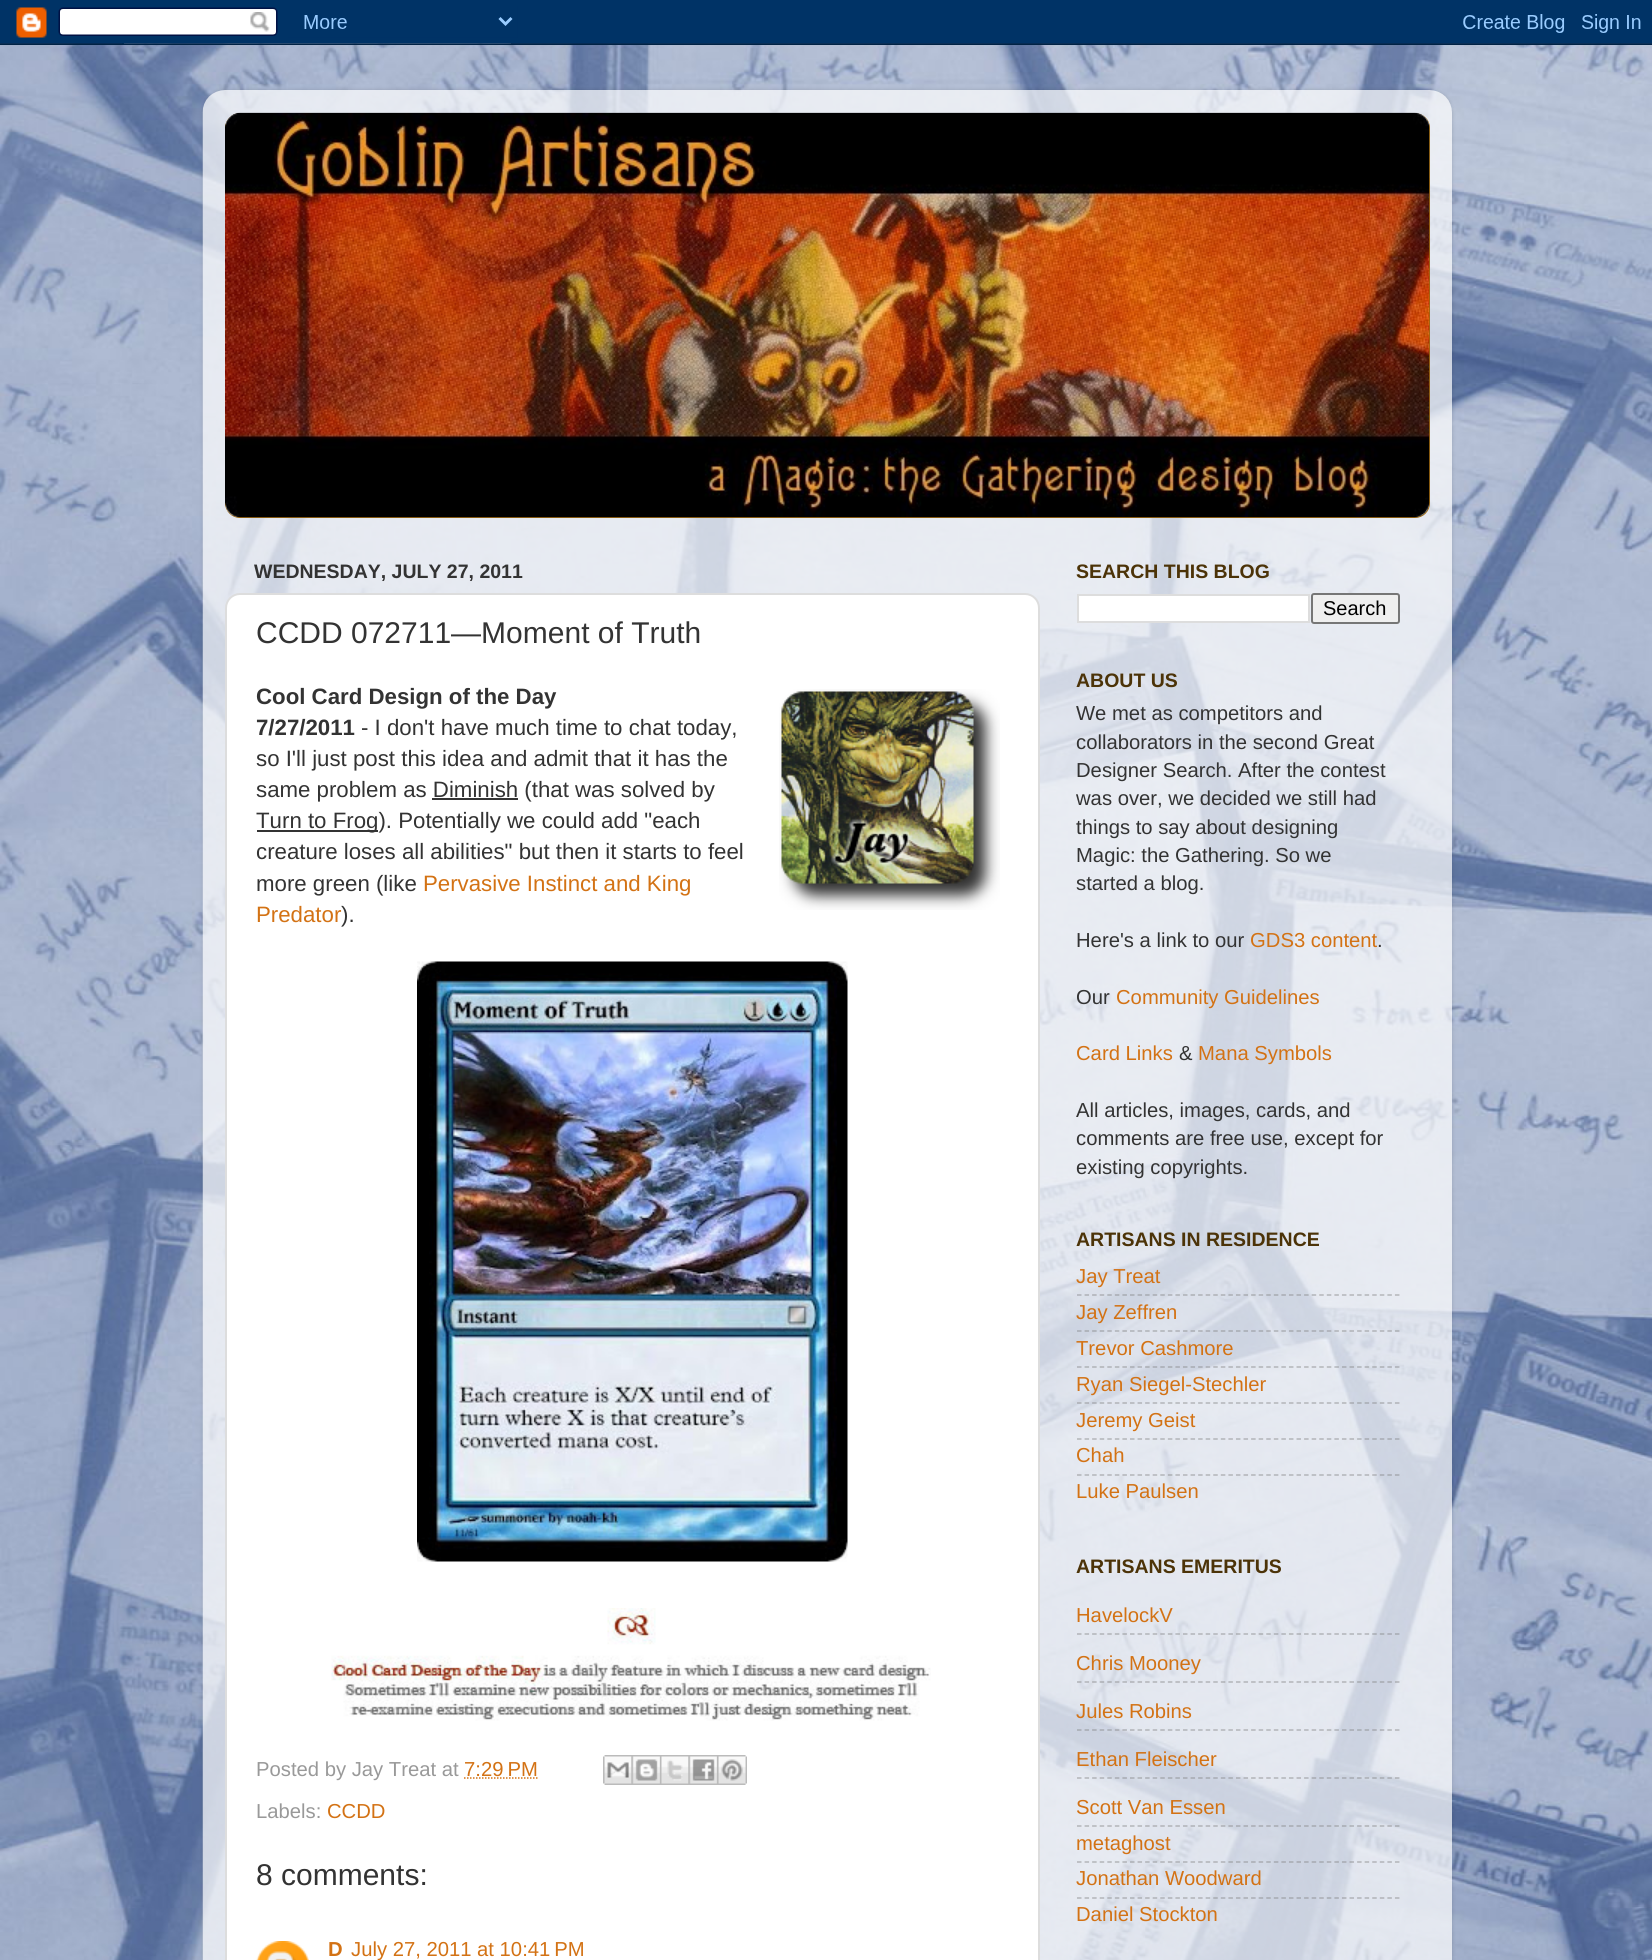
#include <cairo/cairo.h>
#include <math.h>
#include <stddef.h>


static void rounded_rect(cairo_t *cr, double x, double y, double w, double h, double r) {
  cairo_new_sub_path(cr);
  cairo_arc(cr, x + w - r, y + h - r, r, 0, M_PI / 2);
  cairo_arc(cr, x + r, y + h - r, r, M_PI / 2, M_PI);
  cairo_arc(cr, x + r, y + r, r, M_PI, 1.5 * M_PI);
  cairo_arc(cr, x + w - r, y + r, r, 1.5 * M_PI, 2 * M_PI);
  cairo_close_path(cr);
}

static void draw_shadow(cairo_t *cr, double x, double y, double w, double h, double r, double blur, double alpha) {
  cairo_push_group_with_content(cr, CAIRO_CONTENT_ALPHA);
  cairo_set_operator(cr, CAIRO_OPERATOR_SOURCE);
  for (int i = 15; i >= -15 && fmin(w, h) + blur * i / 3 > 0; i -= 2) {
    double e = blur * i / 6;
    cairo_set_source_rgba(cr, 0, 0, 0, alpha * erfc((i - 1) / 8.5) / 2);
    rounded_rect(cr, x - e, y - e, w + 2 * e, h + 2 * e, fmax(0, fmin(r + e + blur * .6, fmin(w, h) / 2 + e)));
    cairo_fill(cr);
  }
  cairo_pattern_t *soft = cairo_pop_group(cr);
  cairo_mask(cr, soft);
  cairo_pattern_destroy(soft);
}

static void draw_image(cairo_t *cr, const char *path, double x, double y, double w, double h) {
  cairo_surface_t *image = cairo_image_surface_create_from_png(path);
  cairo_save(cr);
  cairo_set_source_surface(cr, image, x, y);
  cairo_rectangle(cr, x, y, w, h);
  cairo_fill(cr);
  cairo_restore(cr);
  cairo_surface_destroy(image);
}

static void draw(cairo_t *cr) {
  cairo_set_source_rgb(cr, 1, 1, 1);
  cairo_paint(cr);
  draw_image(cr, "images/1.png", 0, 43, 1652, 1917);
  draw_image(cr, "images/2.png", 0, 0, 1652, 45);
  cairo_save(cr);
  cairo_set_fill_rule(cr, CAIRO_FILL_RULE_EVEN_ODD);
  cairo_new_path(cr);
  cairo_move_to(cr, 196, 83);
  cairo_line_to(cr, 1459, 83);
  cairo_line_to(cr, 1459, 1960);
  cairo_line_to(cr, 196, 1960);
  cairo_close_path(cr);
  cairo_move_to(cr, 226, 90);
  cairo_line_to(cr, 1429, 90);
  cairo_curve_to(cr, 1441.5, 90, 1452, 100.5, 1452, 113);
  cairo_line_to(cr, 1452, 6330);
  cairo_curve_to(cr, 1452, 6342.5, 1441.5, 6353, 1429, 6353);
  cairo_line_to(cr, 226, 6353);
  cairo_curve_to(cr, 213.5, 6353, 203, 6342.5, 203, 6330);
  cairo_line_to(cr, 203, 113);
  cairo_curve_to(cr, 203, 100.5, 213.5, 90, 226, 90);
  cairo_close_path(cr);
  cairo_clip(cr);
  cairo_set_source_rgb(cr, 0, 0, 0);
  draw_shadow(cr, 203, 90, 1249, 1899, 23, 2, 0.15);
  cairo_restore(cr);
  draw_image(cr, "images/3.png", 202, 90, 1250, 1870);
  cairo_set_source_rgb(cr, 153 / 255.0, 102 / 255.0, 17 / 255.0);
  rounded_rect(cr, 225, 113, 1205, 405, 15);
  cairo_fill(cr);
  draw_image(cr, "images/4.png", 225, 113, 1205, 65);
  draw_image(cr, "images/5.png", 225, 112, 1205, 406);
  cairo_set_source_rgb(cr, 1, 1, 1);
  rounded_rect(cr, 226, 594, 813, 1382, 14);
  cairo_fill_preserve(cr);
  cairo_set_source_rgb(cr, 221 / 255.0, 221 / 255.0, 221 / 255.0);
  cairo_stroke(cr);
  draw_image(cr, "images/6.png", 779, 689, 221, 221);
  cairo_set_source_rgb(cr, 51 / 255.0, 51 / 255.0, 51 / 255.0);
  cairo_rectangle(cr, 432, 798, 86, 2);
  cairo_fill(cr);
  cairo_rectangle(cr, 257, 830, 121, 2);
  cairo_fill(cr);
  draw_image(cr, "images/7.png", 417, 961, 431, 601);
  draw_image(cr, "images/8.png", 331, 1608, 600, 113);
  cairo_new_path(cr);
  cairo_move_to(cr, 464, 1778);
  cairo_line_to(cr, 538, 1778);
  cairo_set_source_rgb(cr, 211 / 255.0, 114 / 255.0, 20 / 255.0);
  cairo_set_line_width(cr, 1.5);
  cairo_set_dash(cr, (double[]){1.5, 1.5}, 2, 0);
  cairo_stroke(cr);
  draw_image(cr, "images/9.png", 603, 1755, 29, 30);
  draw_image(cr, "images/10.png", 631, 1755, 29, 30);
  draw_image(cr, "images/11.png", 660, 1755, 29, 30);
  draw_image(cr, "images/12.png", 688, 1755, 29, 30);
  draw_image(cr, "images/13.png", 717, 1755, 30, 30);
  draw_image(cr, "images/14.png", 256, 1941, 53, 19);
  cairo_set_source_rgb(cr, 1, 1, 1);
  cairo_rectangle(cr, 1078, 595, 231, 27);
  cairo_fill_preserve(cr);
  cairo_set_source_rgb(cr, 221 / 255.0, 221 / 255.0, 221 / 255.0);
  cairo_set_line_width(cr, 2);
  cairo_set_dash(cr, NULL, 0, 0);
  cairo_stroke(cr);
  cairo_set_source_rgb(cr, 239 / 255.0, 239 / 255.0, 239 / 255.0);
  rounded_rect(cr, 1312, 594, 87, 29, 2);
  cairo_fill_preserve(cr);
  cairo_set_source_rgb(cr, 118 / 255.0, 118 / 255.0, 118 / 255.0);
  cairo_stroke(cr);
  cairo_new_path(cr);
  cairo_move_to(cr, 1077, 1295);
  cairo_line_to(cr, 1399.5, 1295);
  cairo_set_source_rgba(cr, 128 / 255.0, 128 / 255.0, 128 / 255.0, 0.5);
  cairo_set_line_width(cr, 1.5);
  cairo_set_dash(cr, (double[]){4.5, 3.07}, 2, 0);
  cairo_stroke(cr);
  cairo_new_path(cr);
  cairo_move_to(cr, 1077, 1331);
  cairo_line_to(cr, 1399.5, 1331);
  cairo_stroke(cr);
  cairo_new_path(cr);
  cairo_move_to(cr, 1077, 1367);
  cairo_line_to(cr, 1399.5, 1367);
  cairo_stroke(cr);
  cairo_new_path(cr);
  cairo_move_to(cr, 1077, 1403);
  cairo_line_to(cr, 1399.5, 1403);
  cairo_stroke(cr);
  cairo_new_path(cr);
  cairo_move_to(cr, 1077, 1439);
  cairo_line_to(cr, 1399.5, 1439);
  cairo_stroke(cr);
  cairo_new_path(cr);
  cairo_move_to(cr, 1077, 1475);
  cairo_line_to(cr, 1399.5, 1475);
  cairo_stroke(cr);
  cairo_new_path(cr);
  cairo_move_to(cr, 1077, 1634);
  cairo_line_to(cr, 1399.5, 1634);
  cairo_stroke(cr);
  cairo_new_path(cr);
  cairo_move_to(cr, 1077, 1682);
  cairo_line_to(cr, 1399.5, 1682);
  cairo_stroke(cr);
  cairo_new_path(cr);
  cairo_move_to(cr, 1077, 1730);
  cairo_line_to(cr, 1399.5, 1730);
  cairo_stroke(cr);
  cairo_new_path(cr);
  cairo_move_to(cr, 1077, 1778);
  cairo_line_to(cr, 1399.5, 1778);
  cairo_stroke(cr);
  cairo_new_path(cr);
  cairo_move_to(cr, 1077, 1826);
  cairo_line_to(cr, 1399.5, 1826);
  cairo_stroke(cr);
  cairo_new_path(cr);
  cairo_move_to(cr, 1077, 1862);
  cairo_line_to(cr, 1399.5, 1862);
  cairo_stroke(cr);
  cairo_new_path(cr);
  cairo_move_to(cr, 1077, 1898);
  cairo_line_to(cr, 1399.5, 1898);
  cairo_stroke(cr);
  cairo_select_font_face(cr, "Liberation Sans", CAIRO_FONT_SLANT_NORMAL, CAIRO_FONT_WEIGHT_BOLD);
  cairo_set_font_size(cr, 19.5);
  cairo_set_source_rgb(cr, 51 / 255.0, 51 / 255.0, 51 / 255.0);
  cairo_move_to(cr, 254, 578);
  cairo_show_text(cr, "WEDNESDAY, JULY 27, 2011");
  cairo_select_font_face(cr, "Liberation Sans", CAIRO_FONT_SLANT_NORMAL, CAIRO_FONT_WEIGHT_NORMAL);
  cairo_set_font_size(cr, 30);
  cairo_move_to(cr, 256, 643);
  cairo_show_text(cr, "CCDD 072711—Moment of Truth");
  cairo_select_font_face(cr, "Liberation Sans", CAIRO_FONT_SLANT_NORMAL, CAIRO_FONT_WEIGHT_BOLD);
  cairo_set_font_size(cr, 22.25);
  cairo_move_to(cr, 256, 704);
  cairo_show_text(cr, "Cool Card Design of the Day");
  cairo_move_to(cr, 256, 735);
  cairo_show_text(cr, "7/27/2011");
  cairo_select_font_face(cr, "Liberation Sans", CAIRO_FONT_SLANT_NORMAL, CAIRO_FONT_WEIGHT_NORMAL);
  cairo_move_to(cr, 361, 735);
  cairo_show_text(cr, "- I don't have much time to chat today,");
  cairo_move_to(cr, 256, 766);
  cairo_show_text(cr, "so I'll just post this idea and admit that it has the");
  cairo_move_to(cr, 256, 797);
  cairo_show_text(cr, "same problem as Diminish (that was solved by");
  cairo_move_to(cr, 256, 828);
  cairo_show_text(cr, "Turn to Frog). Potentially we could add \"each");
  cairo_move_to(cr, 256, 859);
  cairo_show_text(cr, "creature loses all abilities\" but then it starts to feel");
  cairo_move_to(cr, 256, 891);
  cairo_show_text(cr, "more green (like");
  cairo_set_source_rgb(cr, 211 / 255.0, 114 / 255.0, 20 / 255.0);
  cairo_move_to(cr, 423, 891);
  cairo_show_text(cr, "Pervasive Instinct and King");
  cairo_move_to(cr, 256, 922);
  cairo_show_text(cr, "Predator");
  cairo_set_source_rgb(cr, 51 / 255.0, 51 / 255.0, 51 / 255.0);
  cairo_move_to(cr, 341, 922);
  cairo_show_text(cr, ").");
  cairo_set_font_size(cr, 20.25);
  cairo_set_source_rgb(cr, 153 / 255.0, 153 / 255.0, 153 / 255.0);
  cairo_move_to(cr, 256, 1776);
  cairo_show_text(cr, "Posted by Jay Treat at");
  cairo_set_source_rgb(cr, 211 / 255.0, 114 / 255.0, 20 / 255.0);
  cairo_move_to(cr, 464, 1776);
  cairo_show_text(cr, "7:29 PM");
  cairo_set_source_rgb(cr, 153 / 255.0, 153 / 255.0, 153 / 255.0);
  cairo_move_to(cr, 256, 1818);
  cairo_show_text(cr, "Labels:");
  cairo_set_source_rgb(cr, 211 / 255.0, 114 / 255.0, 20 / 255.0);
  cairo_move_to(cr, 327, 1818);
  cairo_show_text(cr, "CCDD");
  cairo_set_font_size(cr, 30);
  cairo_set_source_rgb(cr, 51 / 255.0, 51 / 255.0, 51 / 255.0);
  cairo_move_to(cr, 256, 1885);
  cairo_show_text(cr, "8 comments:");
  cairo_select_font_face(cr, "Liberation Sans", CAIRO_FONT_SLANT_NORMAL, CAIRO_FONT_WEIGHT_BOLD);
  cairo_set_font_size(cr, 20.25);
  cairo_set_source_rgb(cr, 211 / 255.0, 114 / 255.0, 20 / 255.0);
  cairo_move_to(cr, 328, 1956);
  cairo_show_text(cr, "D");
  cairo_select_font_face(cr, "Liberation Sans", CAIRO_FONT_SLANT_NORMAL, CAIRO_FONT_WEIGHT_NORMAL);
  cairo_move_to(cr, 351, 1956);
  cairo_show_text(cr, "July 27, 2011 at 10:41 PM");
  cairo_select_font_face(cr, "Liberation Sans", CAIRO_FONT_SLANT_NORMAL, CAIRO_FONT_WEIGHT_BOLD);
  cairo_set_font_size(cr, 19.5);
  cairo_set_source_rgb(cr, 76 / 255.0, 51 / 255.0, 8 / 255.0);
  cairo_move_to(cr, 1076, 578);
  cairo_show_text(cr, "SEARCH THIS BLOG");
  cairo_select_font_face(cr, "Liberation Sans", CAIRO_FONT_SLANT_NORMAL, CAIRO_FONT_WEIGHT_NORMAL);
  cairo_set_font_size(cr, 20);
  cairo_set_source_rgb(cr, 0, 0, 0);
  cairo_move_to(cr, 1323, 615);
  cairo_show_text(cr, "Search");
  cairo_select_font_face(cr, "Liberation Sans", CAIRO_FONT_SLANT_NORMAL, CAIRO_FONT_WEIGHT_BOLD);
  cairo_set_font_size(cr, 19.5);
  cairo_set_source_rgb(cr, 76 / 255.0, 51 / 255.0, 8 / 255.0);
  cairo_move_to(cr, 1076, 687);
  cairo_show_text(cr, "ABOUT US");
  cairo_select_font_face(cr, "Liberation Sans", CAIRO_FONT_SLANT_NORMAL, CAIRO_FONT_WEIGHT_NORMAL);
  cairo_set_font_size(cr, 20.25);
  cairo_set_source_rgb(cr, 51 / 255.0, 51 / 255.0, 51 / 255.0);
  cairo_move_to(cr, 1076, 720);
  cairo_show_text(cr, "We met as competitors and");
  cairo_move_to(cr, 1076, 749);
  cairo_show_text(cr, "collaborators in the second Great");
  cairo_move_to(cr, 1076, 777);
  cairo_show_text(cr, "Designer Search. After the contest");
  cairo_move_to(cr, 1076, 805);
  cairo_show_text(cr, "was over, we decided we still had");
  cairo_move_to(cr, 1076, 834);
  cairo_show_text(cr, "things to say about designing");
  cairo_move_to(cr, 1076, 862);
  cairo_show_text(cr, "Magic: the Gathering. So we");
  cairo_move_to(cr, 1076, 890);
  cairo_show_text(cr, "started a blog.");
  cairo_move_to(cr, 1076, 947);
  cairo_show_text(cr, "Here's a link to our");
  cairo_set_source_rgb(cr, 211 / 255.0, 114 / 255.0, 20 / 255.0);
  cairo_move_to(cr, 1250, 947);
  cairo_show_text(cr, "GDS3 content");
  cairo_set_source_rgb(cr, 51 / 255.0, 51 / 255.0, 51 / 255.0);
  cairo_move_to(cr, 1377, 947);
  cairo_show_text(cr, ".");
  cairo_move_to(cr, 1076, 1004);
  cairo_show_text(cr, "Our");
  cairo_set_source_rgb(cr, 211 / 255.0, 114 / 255.0, 20 / 255.0);
  cairo_move_to(cr, 1116, 1004);
  cairo_show_text(cr, "Community Guidelines");
  cairo_move_to(cr, 1076, 1060);
  cairo_show_text(cr, "Card Links");
  cairo_set_source_rgb(cr, 51 / 255.0, 51 / 255.0, 51 / 255.0);
  cairo_move_to(cr, 1179, 1060);
  cairo_show_text(cr, "&");
  cairo_set_source_rgb(cr, 211 / 255.0, 114 / 255.0, 20 / 255.0);
  cairo_move_to(cr, 1198, 1060);
  cairo_show_text(cr, "Mana Symbols");
  cairo_set_source_rgb(cr, 51 / 255.0, 51 / 255.0, 51 / 255.0);
  cairo_move_to(cr, 1076, 1117);
  cairo_show_text(cr, "All articles, images, cards, and");
  cairo_move_to(cr, 1076, 1145);
  cairo_show_text(cr, "comments are free use, except for");
  cairo_move_to(cr, 1076, 1174);
  cairo_show_text(cr, "existing copyrights.");
  cairo_select_font_face(cr, "Liberation Sans", CAIRO_FONT_SLANT_NORMAL, CAIRO_FONT_WEIGHT_BOLD);
  cairo_set_font_size(cr, 19.5);
  cairo_set_source_rgb(cr, 76 / 255.0, 51 / 255.0, 8 / 255.0);
  cairo_move_to(cr, 1076, 1246);
  cairo_show_text(cr, "ARTISANS IN RESIDENCE");
  cairo_select_font_face(cr, "Liberation Sans", CAIRO_FONT_SLANT_NORMAL, CAIRO_FONT_WEIGHT_NORMAL);
  cairo_set_font_size(cr, 20.25);
  cairo_set_source_rgb(cr, 211 / 255.0, 114 / 255.0, 20 / 255.0);
  cairo_move_to(cr, 1076, 1283);
  cairo_show_text(cr, "Jay Treat");
  cairo_move_to(cr, 1076, 1319);
  cairo_show_text(cr, "Jay Zeffren");
  cairo_move_to(cr, 1076, 1355);
  cairo_show_text(cr, "Trevor Cashmore");
  cairo_move_to(cr, 1076, 1391);
  cairo_show_text(cr, "Ryan Siegel-Stechler");
  cairo_move_to(cr, 1076, 1427);
  cairo_show_text(cr, "Jeremy Geist");
  cairo_move_to(cr, 1076, 1462);
  cairo_show_text(cr, "Chah");
  cairo_move_to(cr, 1076, 1498);
  cairo_show_text(cr, "Luke Paulsen");
  cairo_select_font_face(cr, "Liberation Sans", CAIRO_FONT_SLANT_NORMAL, CAIRO_FONT_WEIGHT_BOLD);
  cairo_set_font_size(cr, 19.5);
  cairo_set_source_rgb(cr, 76 / 255.0, 51 / 255.0, 8 / 255.0);
  cairo_move_to(cr, 1076, 1573);
  cairo_show_text(cr, "ARTISANS EMERITUS");
  cairo_select_font_face(cr, "Liberation Sans", CAIRO_FONT_SLANT_NORMAL, CAIRO_FONT_WEIGHT_NORMAL);
  cairo_set_font_size(cr, 20.25);
  cairo_set_source_rgb(cr, 211 / 255.0, 114 / 255.0, 20 / 255.0);
  cairo_move_to(cr, 1076, 1622);
  cairo_show_text(cr, "HavelockV");
  cairo_move_to(cr, 1076, 1670);
  cairo_show_text(cr, "Chris Mooney");
  cairo_move_to(cr, 1076, 1718);
  cairo_show_text(cr, "Jules Robins");
  cairo_move_to(cr, 1076, 1766);
  cairo_show_text(cr, "Ethan Fleischer");
  cairo_move_to(cr, 1076, 1814);
  cairo_show_text(cr, "Scott Van Essen");
  cairo_move_to(cr, 1076, 1850);
  cairo_show_text(cr, "metaghost");
  cairo_move_to(cr, 1076, 1885);
  cairo_show_text(cr, "Jonathan Woodward");
  cairo_move_to(cr, 1076, 1921);
  cairo_show_text(cr, "Daniel Stockton");
}

int main(void) {
  cairo_surface_t *surface = cairo_image_surface_create(CAIRO_FORMAT_RGB24, 1652, 1960);
  cairo_t *cr = cairo_create(surface);
  cairo_font_options_t *options = cairo_font_options_create();
  cairo_font_options_set_hint_metrics(options, CAIRO_HINT_METRICS_OFF);
  cairo_font_options_set_hint_style(options, CAIRO_HINT_STYLE_NONE);
  cairo_set_font_options(cr, options);
  cairo_set_miter_limit(cr, 4);
  draw(cr);
  cairo_surface_write_to_png(surface, "out.png");
  cairo_font_options_destroy(options);
  cairo_destroy(cr);
  cairo_surface_destroy(surface);
  return 0;
}
